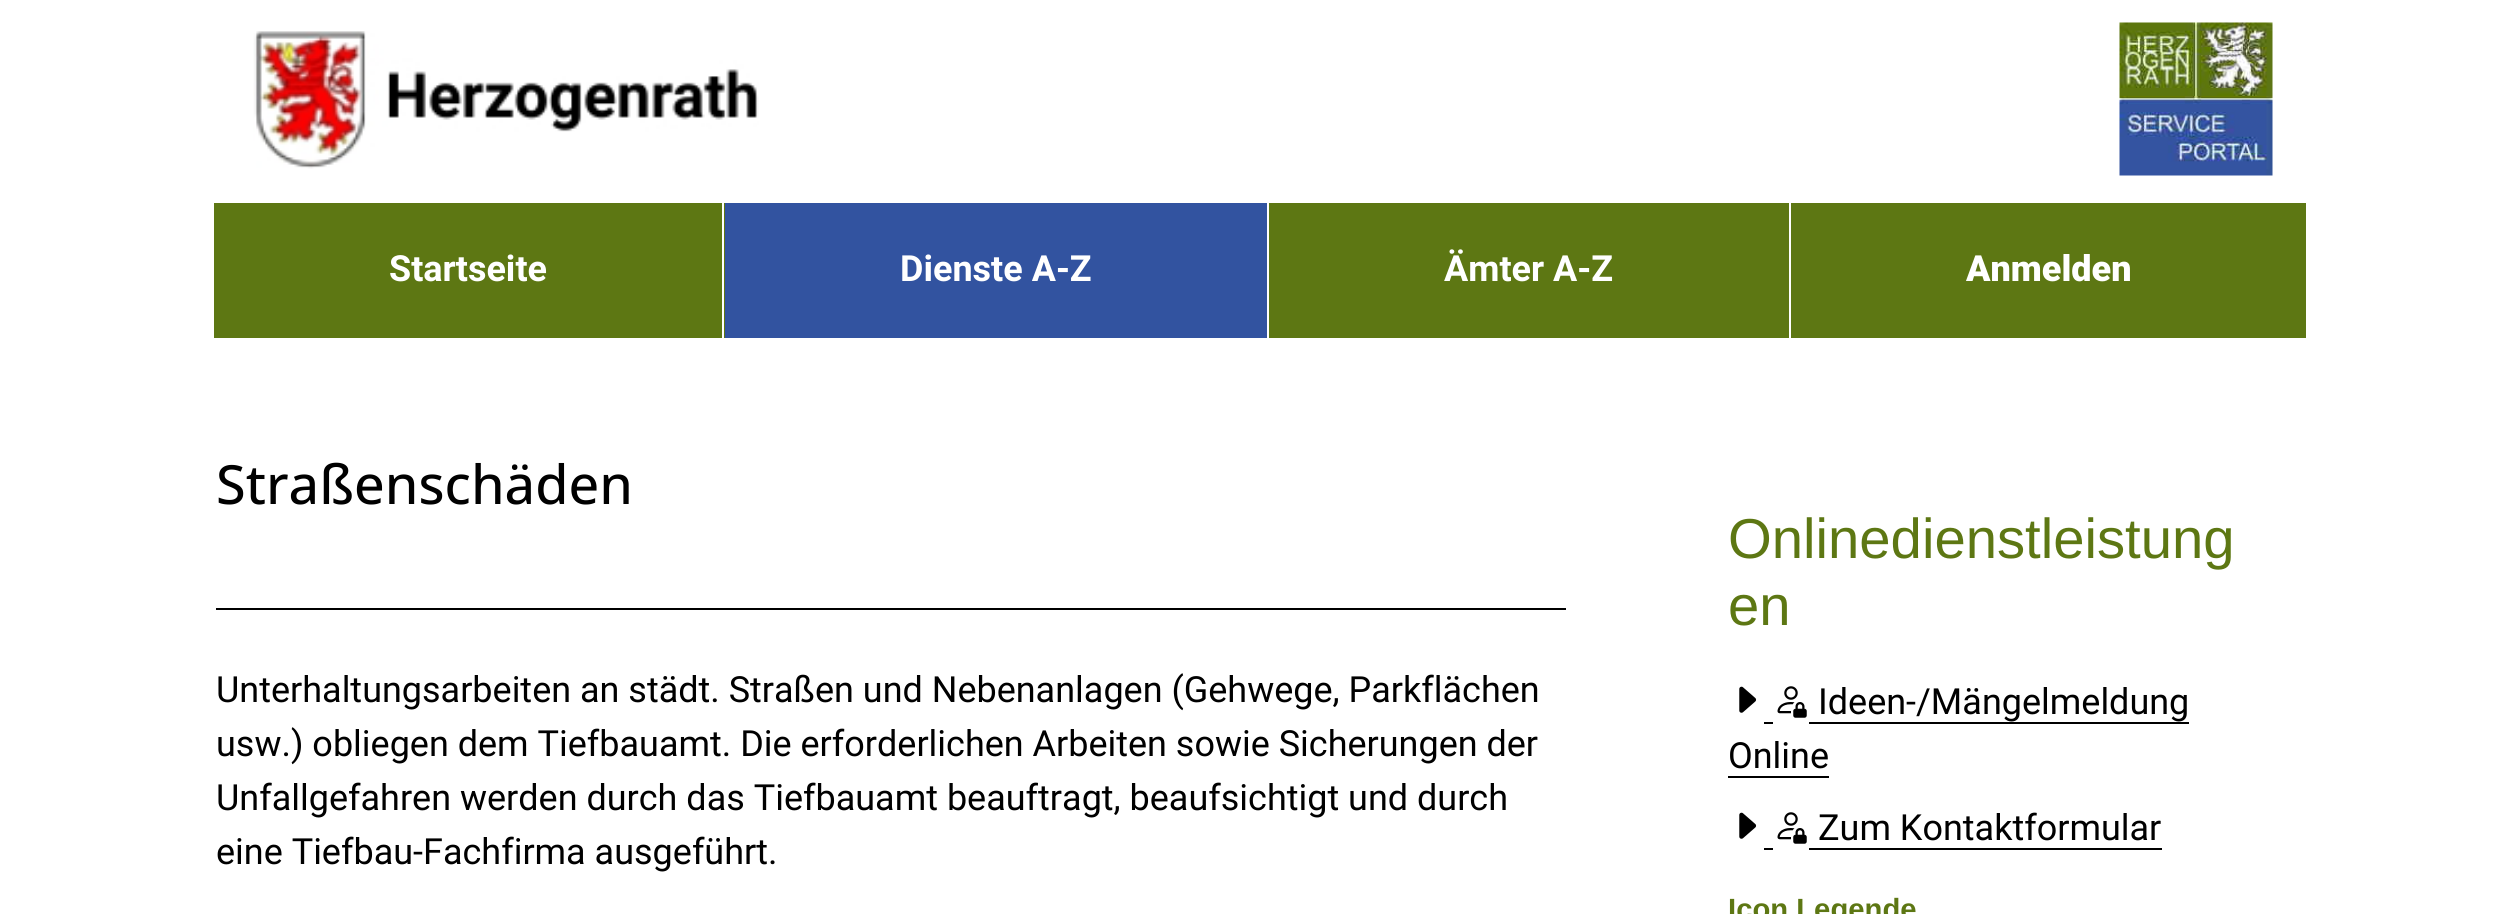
#include <cairo/cairo.h>
#include <math.h>
#include <stddef.h>


static void draw_image(cairo_t *cr, const char *path, double x, double y, double w, double h) {
  cairo_surface_t *image = cairo_image_surface_create_from_png(path);
  cairo_save(cr);
  cairo_set_source_surface(cr, image, x, y);
  cairo_rectangle(cr, x, y, w, h);
  cairo_fill(cr);
  cairo_restore(cr);
  cairo_surface_destroy(image);
}

static void draw(cairo_t *cr) {
  cairo_set_source_rgb(cr, 1, 1, 1);
  cairo_paint(cr);
  draw_image(cr, "images/1.png", 253, 31, 506, 138);
  draw_image(cr, "images/2.png", 2119, 22, 154, 154);
  cairo_set_source_rgb(cr, 93 / 255.0, 119 / 255.0, 19 / 255.0);
  cairo_rectangle(cr, 214, 203, 2092, 135);
  cairo_fill(cr);
  cairo_set_source_rgb(cr, 1, 1, 1);
  cairo_rectangle(cr, 722, 203, 2, 135);
  cairo_fill(cr);
  cairo_set_source_rgb(cr, 50 / 255.0, 83 / 255.0, 160 / 255.0);
  cairo_rectangle(cr, 725, 203, 542, 135);
  cairo_fill(cr);
  cairo_set_source_rgb(cr, 1, 1, 1);
  cairo_rectangle(cr, 1267, 203, 2, 135);
  cairo_fill(cr);
  cairo_rectangle(cr, 1789, 203, 2, 135);
  cairo_fill(cr);
  cairo_set_source_rgb(cr, 0, 0, 0);
  cairo_rectangle(cr, 216, 608, 1350, 2);
  cairo_fill(cr);
  draw_image(cr, "images/3.png", 1739, 686, 18, 27);
  draw_image(cr, "images/4.png", 1777, 686, 30, 32);
  cairo_rectangle(cr, 1764, 722, 9, 2);
  cairo_fill(cr);
  cairo_rectangle(cr, 1809, 722, 380, 2);
  cairo_fill(cr);
  cairo_rectangle(cr, 1728, 776, 101, 2);
  cairo_fill(cr);
  draw_image(cr, "images/3.png", 1739, 812, 18, 27);
  draw_image(cr, "images/4.png", 1777, 812, 30, 32);
  cairo_rectangle(cr, 1764, 848, 9, 2);
  cairo_fill(cr);
  cairo_rectangle(cr, 1809, 848, 353, 2);
  cairo_fill(cr);
  cairo_select_font_face(cr, "Roboto", CAIRO_FONT_SLANT_NORMAL, CAIRO_FONT_WEIGHT_BOLD);
  cairo_set_font_size(cr, 36);
  cairo_set_source_rgb(cr, 1, 1, 1);
  cairo_move_to(cr, 389, 281);
  cairo_show_text(cr, "Startseite");
  cairo_move_to(cr, 900, 281);
  cairo_show_text(cr, "Dienste A-Z");
  cairo_move_to(cr, 1444, 281);
  cairo_show_text(cr, "Ämter A-Z");
  cairo_select_font_face(cr, "Roboto Black", CAIRO_FONT_SLANT_NORMAL, CAIRO_FONT_WEIGHT_NORMAL);
  cairo_move_to(cr, 1966, 281);
  cairo_show_text(cr, "Anmelden");
  cairo_select_font_face(cr, "Open Sans Medium", CAIRO_FONT_SLANT_NORMAL, CAIRO_FONT_WEIGHT_NORMAL);
  cairo_set_font_size(cr, 54);
  cairo_set_source_rgb(cr, 0, 0, 0);
  cairo_move_to(cr, 216, 504);
  cairo_show_text(cr, "Straßenschäden");
  cairo_select_font_face(cr, "Roboto", CAIRO_FONT_SLANT_NORMAL, CAIRO_FONT_WEIGHT_NORMAL);
  cairo_set_font_size(cr, 36);
  cairo_move_to(cr, 216, 702);
  cairo_show_text(cr, "Unterhaltungsarbeiten an städt. Straßen und Nebenanlagen (Gehwege, Parkflächen");
  cairo_move_to(cr, 216, 756);
  cairo_show_text(cr, "usw.) obliegen dem Tiefbauamt. Die erforderlichen Arbeiten sowie Sicherungen der");
  cairo_move_to(cr, 216, 810);
  cairo_show_text(cr, "Unfallgefahren werden durch das Tiefbauamt beauftragt, beaufsichtigt und durch");
  cairo_move_to(cr, 216, 864);
  cairo_show_text(cr, "eine Tiefbau-Fachfirma ausgeführt.");
  cairo_select_font_face(cr, "Liberation Sans", CAIRO_FONT_SLANT_NORMAL, CAIRO_FONT_WEIGHT_NORMAL);
  cairo_set_font_size(cr, 56.25);
  cairo_set_source_rgb(cr, 93 / 255.0, 119 / 255.0, 19 / 255.0);
  cairo_move_to(cr, 1728, 558);
  cairo_show_text(cr, "Onlinedienstleistung");
  cairo_move_to(cr, 1728, 625);
  cairo_show_text(cr, "en");
  cairo_select_font_face(cr, "Roboto", CAIRO_FONT_SLANT_NORMAL, CAIRO_FONT_WEIGHT_NORMAL);
  cairo_set_font_size(cr, 36);
  cairo_set_source_rgb(cr, 0, 0, 0);
  cairo_move_to(cr, 1818, 714);
  cairo_show_text(cr, "Ideen-/Mängelmeldung");
  cairo_move_to(cr, 1728, 768);
  cairo_show_text(cr, "Online");
  cairo_move_to(cr, 1818, 840);
  cairo_show_text(cr, "Zum Kontaktformular");
  cairo_select_font_face(cr, "Liberation Sans", CAIRO_FONT_SLANT_NORMAL, CAIRO_FONT_WEIGHT_BOLD);
  cairo_set_font_size(cr, 29.25);
  cairo_set_source_rgb(cr, 93 / 255.0, 119 / 255.0, 19 / 255.0);
  cairo_move_to(cr, 1728, 919);
  cairo_show_text(cr, "Icon Legende");
}

int main(void) {
  cairo_surface_t *surface = cairo_image_surface_create(CAIRO_FORMAT_RGB24, 2520, 914);
  cairo_t *cr = cairo_create(surface);
  cairo_font_options_t *options = cairo_font_options_create();
  cairo_font_options_set_hint_metrics(options, CAIRO_HINT_METRICS_OFF);
  cairo_font_options_set_hint_style(options, CAIRO_HINT_STYLE_NONE);
  cairo_set_font_options(cr, options);
  cairo_set_miter_limit(cr, 4);
  draw(cr);
  cairo_surface_write_to_png(surface, "out.png");
  cairo_font_options_destroy(options);
  cairo_destroy(cr);
  cairo_surface_destroy(surface);
  return 0;
}
